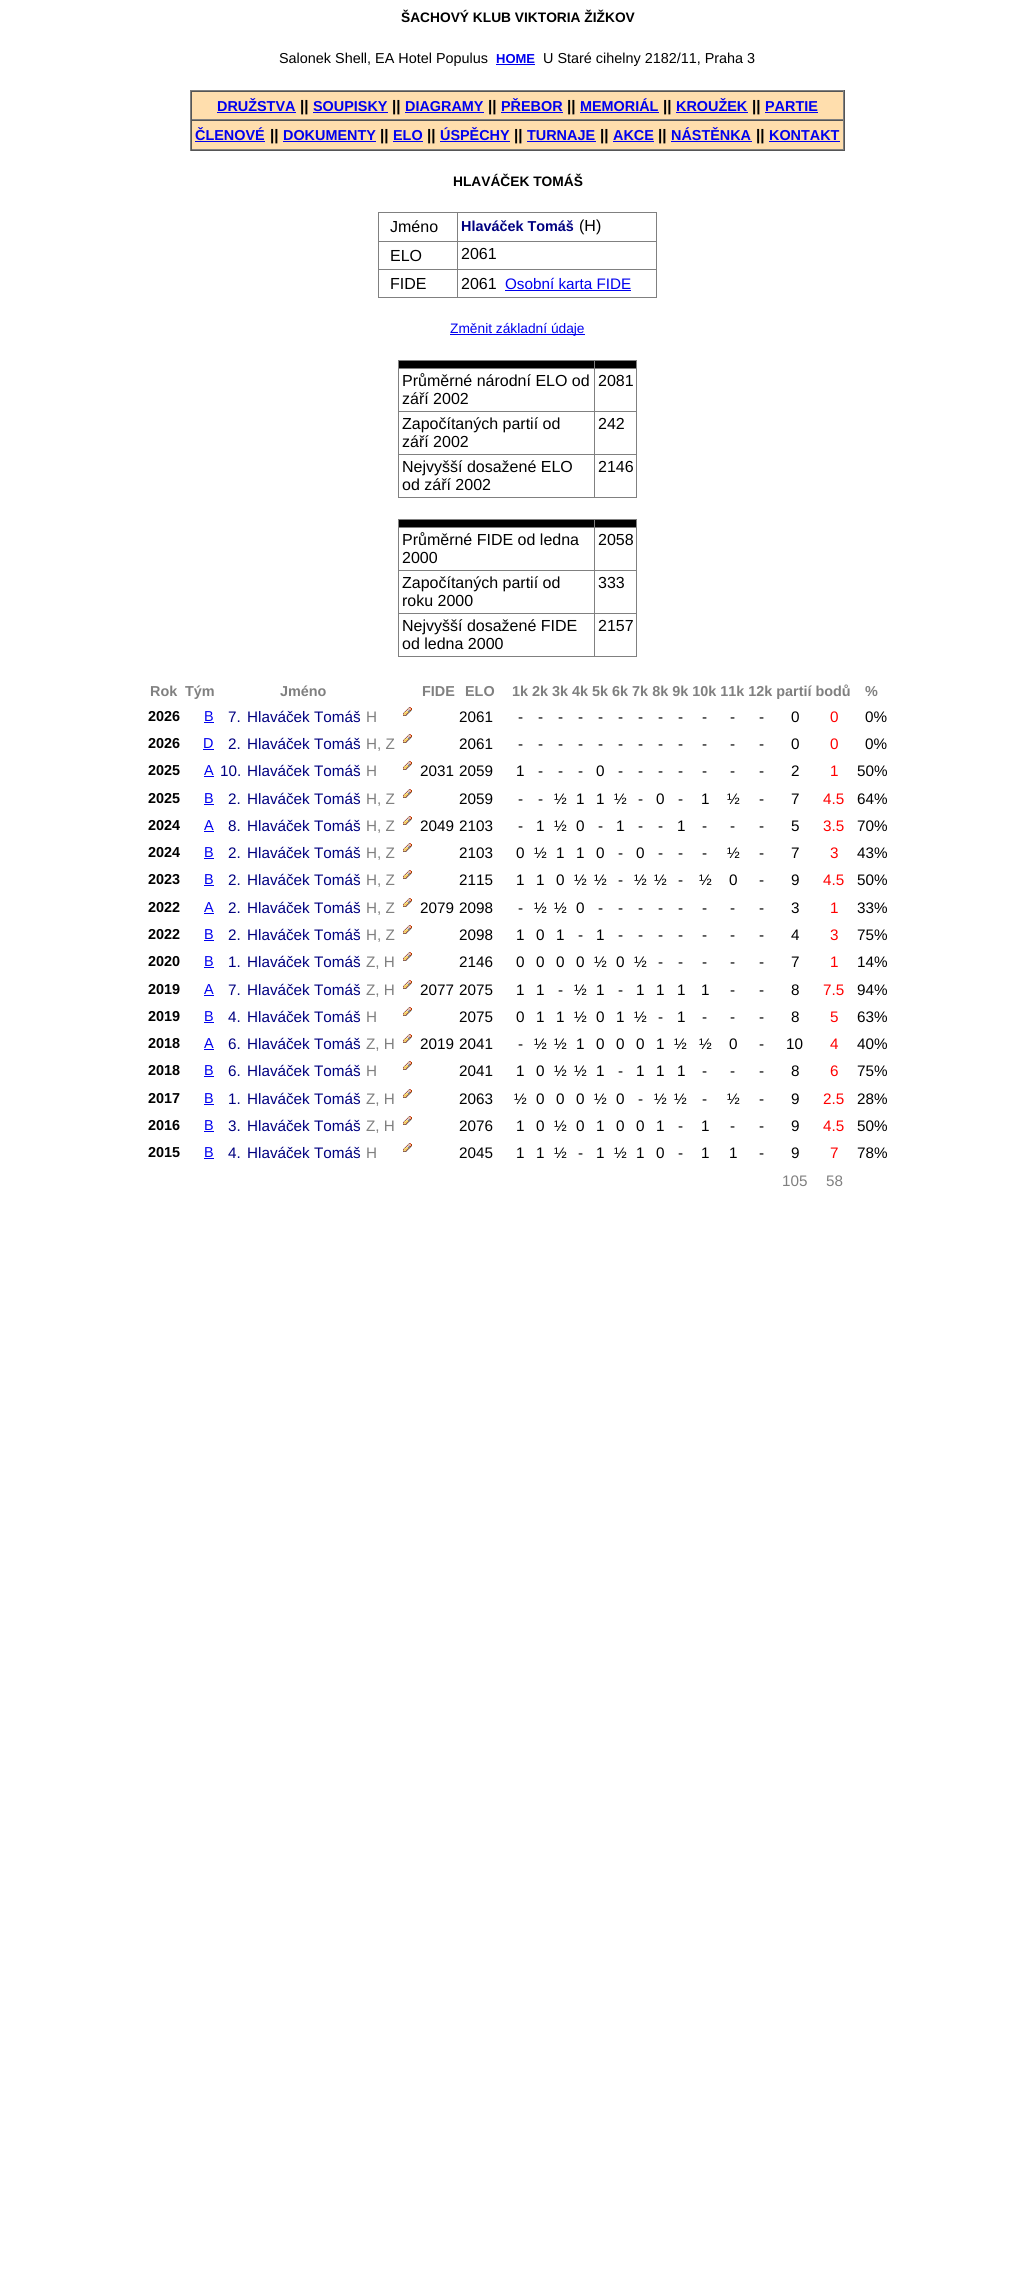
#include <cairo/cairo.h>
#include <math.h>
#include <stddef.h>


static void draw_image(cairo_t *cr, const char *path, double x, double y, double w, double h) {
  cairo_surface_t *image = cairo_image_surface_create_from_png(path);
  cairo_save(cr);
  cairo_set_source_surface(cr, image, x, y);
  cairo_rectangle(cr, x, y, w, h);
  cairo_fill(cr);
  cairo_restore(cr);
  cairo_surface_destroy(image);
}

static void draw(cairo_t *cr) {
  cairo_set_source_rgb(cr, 1, 1, 1);
  cairo_paint(cr);
  cairo_set_source_rgb(cr, 0, 0, 238 / 255.0);
  cairo_rectangle(cr, 496, 64, 39, 1);
  cairo_fill(cr);
  cairo_set_source_rgb(cr, 1, 222 / 255.0, 173 / 255.0);
  cairo_rectangle(cr, 192, 92, 651, 57);
  cairo_fill(cr);
  cairo_set_source_rgb(cr, 128 / 255.0, 128 / 255.0, 128 / 255.0);
  cairo_rectangle(cr, 190, 90, 655, 1);
  cairo_fill(cr);
  cairo_set_source_rgb(cr, 85 / 255.0, 85 / 255.0, 85 / 255.0);
  cairo_rectangle(cr, 844, 90, 1, 61);
  cairo_fill(cr);
  cairo_rectangle(cr, 190, 150, 655, 1);
  cairo_fill(cr);
  cairo_set_source_rgb(cr, 128 / 255.0, 128 / 255.0, 128 / 255.0);
  cairo_rectangle(cr, 190, 90, 1, 61);
  cairo_fill(cr);
  cairo_set_source_rgb(cr, 85 / 255.0, 85 / 255.0, 85 / 255.0);
  cairo_rectangle(cr, 191, 91, 653, 1);
  cairo_fill(cr);
  cairo_set_source_rgb(cr, 128 / 255.0, 128 / 255.0, 128 / 255.0);
  cairo_rectangle(cr, 843, 91, 1, 29);
  cairo_fill(cr);
  cairo_rectangle(cr, 191, 119, 653, 1);
  cairo_fill(cr);
  cairo_set_source_rgb(cr, 85 / 255.0, 85 / 255.0, 85 / 255.0);
  cairo_rectangle(cr, 191, 91, 1, 29);
  cairo_fill(cr);
  cairo_set_source_rgb(cr, 0, 0, 238 / 255.0);
  cairo_rectangle(cr, 217, 112, 79, 1);
  cairo_fill(cr);
  cairo_rectangle(cr, 313, 112, 75, 1);
  cairo_fill(cr);
  cairo_rectangle(cr, 405, 112, 79, 1);
  cairo_fill(cr);
  cairo_rectangle(cr, 501, 112, 62, 1);
  cairo_fill(cr);
  cairo_rectangle(cr, 580, 112, 79, 1);
  cairo_fill(cr);
  cairo_rectangle(cr, 676, 112, 72, 1);
  cairo_fill(cr);
  cairo_rectangle(cr, 765, 112, 53, 1);
  cairo_fill(cr);
  cairo_set_source_rgb(cr, 85 / 255.0, 85 / 255.0, 85 / 255.0);
  cairo_rectangle(cr, 191, 120, 653, 1);
  cairo_fill(cr);
  cairo_set_source_rgb(cr, 128 / 255.0, 128 / 255.0, 128 / 255.0);
  cairo_rectangle(cr, 843, 120, 1, 30);
  cairo_fill(cr);
  cairo_rectangle(cr, 191, 149, 653, 1);
  cairo_fill(cr);
  cairo_set_source_rgb(cr, 85 / 255.0, 85 / 255.0, 85 / 255.0);
  cairo_rectangle(cr, 191, 120, 1, 30);
  cairo_fill(cr);
  cairo_set_source_rgb(cr, 0, 0, 238 / 255.0);
  cairo_rectangle(cr, 195, 141, 70, 1);
  cairo_fill(cr);
  cairo_rectangle(cr, 283, 141, 93, 1);
  cairo_fill(cr);
  cairo_rectangle(cr, 393, 141, 30, 1);
  cairo_fill(cr);
  cairo_rectangle(cr, 440, 141, 70, 1);
  cairo_fill(cr);
  cairo_rectangle(cr, 527, 141, 69, 1);
  cairo_fill(cr);
  cairo_rectangle(cr, 613, 141, 41, 1);
  cairo_fill(cr);
  cairo_rectangle(cr, 671, 141, 81, 1);
  cairo_fill(cr);
  cairo_rectangle(cr, 769, 141, 71, 1);
  cairo_fill(cr);
  cairo_set_source_rgb(cr, 128 / 255.0, 128 / 255.0, 128 / 255.0);
  cairo_rectangle(cr, 378, 212, 279, 1);
  cairo_fill(cr);
  cairo_rectangle(cr, 656, 212, 1, 86);
  cairo_fill(cr);
  cairo_rectangle(cr, 378, 297, 279, 1);
  cairo_fill(cr);
  cairo_rectangle(cr, 378, 212, 1, 86);
  cairo_fill(cr);
  cairo_rectangle(cr, 457, 241, 200, 1);
  cairo_fill(cr);
  cairo_rectangle(cr, 457, 269, 200, 1);
  cairo_fill(cr);
  cairo_rectangle(cr, 457, 269, 1, 29);
  cairo_fill(cr);
  cairo_rectangle(cr, 378, 269, 80, 1);
  cairo_fill(cr);
  cairo_rectangle(cr, 457, 241, 1, 29);
  cairo_fill(cr);
  cairo_rectangle(cr, 378, 241, 80, 1);
  cairo_fill(cr);
  cairo_rectangle(cr, 457, 212, 1, 30);
  cairo_fill(cr);
  cairo_set_source_rgb(cr, 0, 0, 238 / 255.0);
  cairo_rectangle(cr, 505, 290, 126, 1);
  cairo_fill(cr);
  cairo_rectangle(cr, 450, 334, 135, 1);
  cairo_fill(cr);
  cairo_set_source_rgb(cr, 128 / 255.0, 128 / 255.0, 128 / 255.0);
  cairo_rectangle(cr, 398, 360, 239, 1);
  cairo_fill(cr);
  cairo_set_source_rgb(cr, 0, 0, 0);
  cairo_rectangle(cr, 398, 361, 239, 7);
  cairo_fill(cr);
  cairo_set_source_rgb(cr, 128 / 255.0, 128 / 255.0, 128 / 255.0);
  cairo_rectangle(cr, 636, 360, 1, 138);
  cairo_fill(cr);
  cairo_rectangle(cr, 398, 497, 239, 1);
  cairo_fill(cr);
  cairo_rectangle(cr, 398, 360, 1, 138);
  cairo_fill(cr);
  cairo_rectangle(cr, 594, 368, 43, 1);
  cairo_fill(cr);
  cairo_rectangle(cr, 594, 411, 43, 1);
  cairo_fill(cr);
  cairo_rectangle(cr, 594, 454, 43, 1);
  cairo_fill(cr);
  cairo_rectangle(cr, 594, 454, 1, 44);
  cairo_fill(cr);
  cairo_rectangle(cr, 398, 454, 197, 1);
  cairo_fill(cr);
  cairo_rectangle(cr, 594, 411, 1, 44);
  cairo_fill(cr);
  cairo_rectangle(cr, 398, 411, 197, 1);
  cairo_fill(cr);
  cairo_rectangle(cr, 594, 368, 1, 44);
  cairo_fill(cr);
  cairo_rectangle(cr, 398, 368, 197, 1);
  cairo_fill(cr);
  cairo_rectangle(cr, 594, 360, 1, 9);
  cairo_fill(cr);
  cairo_rectangle(cr, 398, 519, 239, 1);
  cairo_fill(cr);
  cairo_set_source_rgb(cr, 0, 0, 0);
  cairo_rectangle(cr, 398, 520, 239, 7);
  cairo_fill(cr);
  cairo_set_source_rgb(cr, 128 / 255.0, 128 / 255.0, 128 / 255.0);
  cairo_rectangle(cr, 636, 519, 1, 138);
  cairo_fill(cr);
  cairo_rectangle(cr, 398, 656, 239, 1);
  cairo_fill(cr);
  cairo_rectangle(cr, 398, 519, 1, 138);
  cairo_fill(cr);
  cairo_rectangle(cr, 594, 527, 43, 1);
  cairo_fill(cr);
  cairo_rectangle(cr, 594, 570, 43, 1);
  cairo_fill(cr);
  cairo_rectangle(cr, 594, 613, 43, 1);
  cairo_fill(cr);
  cairo_rectangle(cr, 594, 613, 1, 44);
  cairo_fill(cr);
  cairo_rectangle(cr, 398, 613, 197, 1);
  cairo_fill(cr);
  cairo_rectangle(cr, 594, 570, 1, 44);
  cairo_fill(cr);
  cairo_rectangle(cr, 398, 570, 197, 1);
  cairo_fill(cr);
  cairo_rectangle(cr, 594, 527, 1, 44);
  cairo_fill(cr);
  cairo_rectangle(cr, 398, 527, 197, 1);
  cairo_fill(cr);
  cairo_rectangle(cr, 594, 519, 1, 9);
  cairo_fill(cr);
  cairo_set_source_rgb(cr, 0, 0, 238 / 255.0);
  cairo_rectangle(cr, 204, 722, 10, 1);
  cairo_fill(cr);
  draw_image(cr, "images/1.png", 403, 707, 9, 9);
  cairo_rectangle(cr, 203, 749, 11, 1);
  cairo_fill(cr);
  draw_image(cr, "images/1.png", 403, 734, 9, 9);
  cairo_rectangle(cr, 204, 776, 10, 1);
  cairo_fill(cr);
  draw_image(cr, "images/1.png", 403, 761, 9, 9);
  cairo_rectangle(cr, 204, 804, 10, 1);
  cairo_fill(cr);
  draw_image(cr, "images/1.png", 403, 789, 9, 9);
  cairo_rectangle(cr, 204, 831, 10, 1);
  cairo_fill(cr);
  draw_image(cr, "images/1.png", 403, 816, 9, 9);
  cairo_rectangle(cr, 204, 858, 10, 1);
  cairo_fill(cr);
  draw_image(cr, "images/1.png", 403, 843, 9, 9);
  cairo_rectangle(cr, 204, 885, 10, 1);
  cairo_fill(cr);
  draw_image(cr, "images/1.png", 403, 870, 9, 9);
  cairo_rectangle(cr, 204, 913, 10, 1);
  cairo_fill(cr);
  draw_image(cr, "images/1.png", 403, 898, 9, 9);
  cairo_rectangle(cr, 204, 940, 10, 1);
  cairo_fill(cr);
  draw_image(cr, "images/1.png", 403, 925, 9, 9);
  cairo_rectangle(cr, 204, 967, 10, 1);
  cairo_fill(cr);
  draw_image(cr, "images/1.png", 403, 952, 9, 9);
  cairo_rectangle(cr, 204, 995, 10, 1);
  cairo_fill(cr);
  draw_image(cr, "images/1.png", 403, 980, 9, 9);
  cairo_rectangle(cr, 204, 1022, 10, 1);
  cairo_fill(cr);
  draw_image(cr, "images/1.png", 403, 1007, 9, 9);
  cairo_rectangle(cr, 204, 1049, 10, 1);
  cairo_fill(cr);
  draw_image(cr, "images/1.png", 403, 1034, 9, 9);
  cairo_rectangle(cr, 204, 1076, 10, 1);
  cairo_fill(cr);
  draw_image(cr, "images/1.png", 403, 1061, 9, 9);
  cairo_rectangle(cr, 204, 1104, 10, 1);
  cairo_fill(cr);
  draw_image(cr, "images/1.png", 403, 1089, 9, 9);
  cairo_rectangle(cr, 204, 1131, 10, 1);
  cairo_fill(cr);
  draw_image(cr, "images/1.png", 403, 1116, 9, 9);
  cairo_rectangle(cr, 204, 1158, 10, 1);
  cairo_fill(cr);
  draw_image(cr, "images/1.png", 403, 1143, 9, 9);
  cairo_select_font_face(cr, "Liberation Sans", CAIRO_FONT_SLANT_NORMAL, CAIRO_FONT_WEIGHT_BOLD);
  cairo_set_font_size(cr, 13.75);
  cairo_set_source_rgb(cr, 0, 0, 0);
  cairo_move_to(cr, 401, 22);
  cairo_show_text(cr, "ŠACHOVÝ KLUB VIKTORIA ŽIŽKOV");
  cairo_select_font_face(cr, "Liberation Sans", CAIRO_FONT_SLANT_NORMAL, CAIRO_FONT_WEIGHT_NORMAL);
  cairo_set_font_size(cr, 14.4);
  cairo_move_to(cr, 279, 63);
  cairo_show_text(cr, "Salonek Shell, EA Hotel Populus");
  cairo_select_font_face(cr, "Liberation Sans", CAIRO_FONT_SLANT_NORMAL, CAIRO_FONT_WEIGHT_BOLD);
  cairo_set_font_size(cr, 13);
  cairo_set_source_rgb(cr, 0, 0, 238 / 255.0);
  cairo_move_to(cr, 496, 63);
  cairo_show_text(cr, "HOME");
  cairo_select_font_face(cr, "Liberation Sans", CAIRO_FONT_SLANT_NORMAL, CAIRO_FONT_WEIGHT_NORMAL);
  cairo_set_font_size(cr, 14.4);
  cairo_set_source_rgb(cr, 0, 0, 0);
  cairo_move_to(cr, 543, 63);
  cairo_show_text(cr, "U Staré cihelny 2182/11, Praha 3");
  cairo_select_font_face(cr, "Liberation Sans", CAIRO_FONT_SLANT_NORMAL, CAIRO_FONT_WEIGHT_BOLD);
  cairo_set_source_rgb(cr, 0, 0, 238 / 255.0);
  cairo_move_to(cr, 217, 111);
  cairo_show_text(cr, "DRUŽSTVA");
  cairo_set_font_size(cr, 15.25);
  cairo_set_source_rgb(cr, 0, 0, 0);
  cairo_move_to(cr, 300, 111);
  cairo_show_text(cr, "||");
  cairo_set_font_size(cr, 14.4);
  cairo_set_source_rgb(cr, 0, 0, 238 / 255.0);
  cairo_move_to(cr, 313, 111);
  cairo_show_text(cr, "SOUPISKY");
  cairo_set_font_size(cr, 15.25);
  cairo_set_source_rgb(cr, 0, 0, 0);
  cairo_move_to(cr, 392, 111);
  cairo_show_text(cr, "||");
  cairo_set_font_size(cr, 14.4);
  cairo_set_source_rgb(cr, 0, 0, 238 / 255.0);
  cairo_move_to(cr, 405, 111);
  cairo_show_text(cr, "DIAGRAMY");
  cairo_set_font_size(cr, 15.25);
  cairo_set_source_rgb(cr, 0, 0, 0);
  cairo_move_to(cr, 488, 111);
  cairo_show_text(cr, "||");
  cairo_set_font_size(cr, 14.4);
  cairo_set_source_rgb(cr, 0, 0, 238 / 255.0);
  cairo_move_to(cr, 501, 111);
  cairo_show_text(cr, "PŘEBOR");
  cairo_set_font_size(cr, 15.25);
  cairo_set_source_rgb(cr, 0, 0, 0);
  cairo_move_to(cr, 567, 111);
  cairo_show_text(cr, "||");
  cairo_set_font_size(cr, 14.4);
  cairo_set_source_rgb(cr, 0, 0, 238 / 255.0);
  cairo_move_to(cr, 580, 111);
  cairo_show_text(cr, "MEMORIÁL");
  cairo_set_font_size(cr, 15.25);
  cairo_set_source_rgb(cr, 0, 0, 0);
  cairo_move_to(cr, 663, 111);
  cairo_show_text(cr, "||");
  cairo_set_font_size(cr, 14.4);
  cairo_set_source_rgb(cr, 0, 0, 238 / 255.0);
  cairo_move_to(cr, 676, 111);
  cairo_show_text(cr, "KROUŽEK");
  cairo_set_font_size(cr, 15.25);
  cairo_set_source_rgb(cr, 0, 0, 0);
  cairo_move_to(cr, 752, 111);
  cairo_show_text(cr, "||");
  cairo_set_font_size(cr, 14.4);
  cairo_set_source_rgb(cr, 0, 0, 238 / 255.0);
  cairo_move_to(cr, 765, 111);
  cairo_show_text(cr, "PARTIE");
  cairo_move_to(cr, 195, 140);
  cairo_show_text(cr, "ČLENOVÉ");
  cairo_set_font_size(cr, 15.25);
  cairo_set_source_rgb(cr, 0, 0, 0);
  cairo_move_to(cr, 270, 140);
  cairo_show_text(cr, "||");
  cairo_set_font_size(cr, 14.4);
  cairo_set_source_rgb(cr, 0, 0, 238 / 255.0);
  cairo_move_to(cr, 283, 140);
  cairo_show_text(cr, "DOKUMENTY");
  cairo_set_font_size(cr, 15.25);
  cairo_set_source_rgb(cr, 0, 0, 0);
  cairo_move_to(cr, 380, 140);
  cairo_show_text(cr, "||");
  cairo_set_font_size(cr, 14.4);
  cairo_set_source_rgb(cr, 0, 0, 238 / 255.0);
  cairo_move_to(cr, 393, 140);
  cairo_show_text(cr, "ELO");
  cairo_set_font_size(cr, 15.25);
  cairo_set_source_rgb(cr, 0, 0, 0);
  cairo_move_to(cr, 427, 140);
  cairo_show_text(cr, "||");
  cairo_set_font_size(cr, 14.4);
  cairo_set_source_rgb(cr, 0, 0, 238 / 255.0);
  cairo_move_to(cr, 440, 140);
  cairo_show_text(cr, "ÚSPĚCHY");
  cairo_set_font_size(cr, 15.25);
  cairo_set_source_rgb(cr, 0, 0, 0);
  cairo_move_to(cr, 514, 140);
  cairo_show_text(cr, "||");
  cairo_set_font_size(cr, 14.4);
  cairo_set_source_rgb(cr, 0, 0, 238 / 255.0);
  cairo_move_to(cr, 527, 140);
  cairo_show_text(cr, "TURNAJE");
  cairo_set_font_size(cr, 15.25);
  cairo_set_source_rgb(cr, 0, 0, 0);
  cairo_move_to(cr, 600, 140);
  cairo_show_text(cr, "||");
  cairo_set_font_size(cr, 14.4);
  cairo_set_source_rgb(cr, 0, 0, 238 / 255.0);
  cairo_move_to(cr, 613, 140);
  cairo_show_text(cr, "AKCE");
  cairo_set_font_size(cr, 15.25);
  cairo_set_source_rgb(cr, 0, 0, 0);
  cairo_move_to(cr, 658, 140);
  cairo_show_text(cr, "||");
  cairo_set_font_size(cr, 14.4);
  cairo_set_source_rgb(cr, 0, 0, 238 / 255.0);
  cairo_move_to(cr, 671, 140);
  cairo_show_text(cr, "NÁSTĚNKA");
  cairo_set_font_size(cr, 15.25);
  cairo_set_source_rgb(cr, 0, 0, 0);
  cairo_move_to(cr, 756, 140);
  cairo_show_text(cr, "||");
  cairo_set_font_size(cr, 14.4);
  cairo_set_source_rgb(cr, 0, 0, 238 / 255.0);
  cairo_move_to(cr, 769, 140);
  cairo_show_text(cr, "KONTAKT");
  cairo_set_font_size(cr, 13.75);
  cairo_set_source_rgb(cr, 0, 0, 0);
  cairo_move_to(cr, 453, 186);
  cairo_show_text(cr, "HLAVÁČEK TOMÁŠ");
  cairo_select_font_face(cr, "Liberation Sans", CAIRO_FONT_SLANT_NORMAL, CAIRO_FONT_WEIGHT_NORMAL);
  cairo_set_font_size(cr, 16);
  cairo_move_to(cr, 390, 232);
  cairo_show_text(cr, "Jméno");
  cairo_select_font_face(cr, "Liberation Sans", CAIRO_FONT_SLANT_NORMAL, CAIRO_FONT_WEIGHT_BOLD);
  cairo_set_font_size(cr, 14.4);
  cairo_set_source_rgb(cr, 0, 0, 128 / 255.0);
  cairo_move_to(cr, 461, 231);
  cairo_show_text(cr, "Hlaváček Tomáš");
  cairo_select_font_face(cr, "Liberation Sans", CAIRO_FONT_SLANT_NORMAL, CAIRO_FONT_WEIGHT_NORMAL);
  cairo_set_font_size(cr, 16);
  cairo_set_source_rgb(cr, 0, 0, 0);
  cairo_move_to(cr, 579, 231);
  cairo_show_text(cr, "(H)");
  cairo_move_to(cr, 390, 261);
  cairo_show_text(cr, "ELO");
  cairo_move_to(cr, 461, 259);
  cairo_show_text(cr, "2061");
  cairo_move_to(cr, 390, 289);
  cairo_show_text(cr, "FIDE");
  cairo_move_to(cr, 461, 289);
  cairo_show_text(cr, "2061");
  cairo_set_font_size(cr, 15.25);
  cairo_set_source_rgb(cr, 0, 0, 238 / 255.0);
  cairo_move_to(cr, 505, 289);
  cairo_show_text(cr, "Osobní karta FIDE");
  cairo_set_font_size(cr, 13.75);
  cairo_move_to(cr, 450, 333);
  cairo_show_text(cr, "Změnit základní údaje");
  cairo_set_font_size(cr, 16);
  cairo_set_source_rgb(cr, 0, 0, 0);
  cairo_move_to(cr, 402, 386);
  cairo_show_text(cr, "Průměrné národní ELO od");
  cairo_move_to(cr, 402, 404);
  cairo_show_text(cr, "září 2002");
  cairo_move_to(cr, 598, 386);
  cairo_show_text(cr, "2081");
  cairo_move_to(cr, 402, 429);
  cairo_show_text(cr, "Započítaných partií od");
  cairo_move_to(cr, 402, 447);
  cairo_show_text(cr, "září 2002");
  cairo_move_to(cr, 598, 429);
  cairo_show_text(cr, "242");
  cairo_move_to(cr, 402, 472);
  cairo_show_text(cr, "Nejvyšší dosažené ELO");
  cairo_move_to(cr, 402, 490);
  cairo_show_text(cr, "od září 2002");
  cairo_move_to(cr, 598, 472);
  cairo_show_text(cr, "2146");
  cairo_move_to(cr, 402, 545);
  cairo_show_text(cr, "Průměrné FIDE od ledna");
  cairo_move_to(cr, 402, 563);
  cairo_show_text(cr, "2000");
  cairo_move_to(cr, 598, 545);
  cairo_show_text(cr, "2058");
  cairo_move_to(cr, 402, 588);
  cairo_show_text(cr, "Započítaných partií od");
  cairo_move_to(cr, 402, 606);
  cairo_show_text(cr, "roku 2000");
  cairo_move_to(cr, 598, 588);
  cairo_show_text(cr, "333");
  cairo_move_to(cr, 402, 631);
  cairo_show_text(cr, "Nejvyšší dosažené FIDE");
  cairo_move_to(cr, 402, 649);
  cairo_show_text(cr, "od ledna 2000");
  cairo_move_to(cr, 598, 631);
  cairo_show_text(cr, "2157");
  cairo_select_font_face(cr, "Liberation Sans", CAIRO_FONT_SLANT_NORMAL, CAIRO_FONT_WEIGHT_BOLD);
  cairo_set_font_size(cr, 14.4);
  cairo_set_source_rgb(cr, 128 / 255.0, 128 / 255.0, 128 / 255.0);
  cairo_move_to(cr, 150, 696);
  cairo_show_text(cr, "Rok");
  cairo_move_to(cr, 185, 696);
  cairo_show_text(cr, "Tým");
  cairo_move_to(cr, 280, 696);
  cairo_show_text(cr, "Jméno");
  cairo_move_to(cr, 422, 696);
  cairo_show_text(cr, "FIDE");
  cairo_move_to(cr, 465, 696);
  cairo_show_text(cr, "ELO");
  cairo_move_to(cr, 512, 696);
  cairo_show_text(cr, "1k 2k 3k 4k 5k 6k 7k 8k 9k 10k 11k 12k partií bodů");
  cairo_move_to(cr, 865, 696);
  cairo_show_text(cr, "%");
  cairo_set_source_rgb(cr, 0, 0, 0);
  cairo_move_to(cr, 148, 721);
  cairo_show_text(cr, "2026");
  cairo_select_font_face(cr, "Liberation Sans", CAIRO_FONT_SLANT_NORMAL, CAIRO_FONT_WEIGHT_NORMAL);
  cairo_set_source_rgb(cr, 0, 0, 238 / 255.0);
  cairo_move_to(cr, 204, 721);
  cairo_show_text(cr, "B");
  cairo_set_font_size(cr, 15.25);
  cairo_set_source_rgb(cr, 0, 0, 128 / 255.0);
  cairo_move_to(cr, 228, 722);
  cairo_show_text(cr, "7.");
  cairo_move_to(cr, 247, 722);
  cairo_show_text(cr, "Hlaváček Tomáš");
  cairo_set_source_rgb(cr, 128 / 255.0, 128 / 255.0, 128 / 255.0);
  cairo_move_to(cr, 366, 722);
  cairo_show_text(cr, "H");
  cairo_set_source_rgb(cr, 0, 0, 0);
  cairo_move_to(cr, 459, 722);
  cairo_show_text(cr, "2061");
  cairo_move_to(cr, 518, 722);
  cairo_show_text(cr, "-");
  cairo_move_to(cr, 538, 722);
  cairo_show_text(cr, "-");
  cairo_move_to(cr, 558, 722);
  cairo_show_text(cr, "-");
  cairo_move_to(cr, 578, 722);
  cairo_show_text(cr, "-");
  cairo_move_to(cr, 598, 722);
  cairo_show_text(cr, "-");
  cairo_move_to(cr, 618, 722);
  cairo_show_text(cr, "-");
  cairo_move_to(cr, 638, 722);
  cairo_show_text(cr, "-");
  cairo_move_to(cr, 658, 722);
  cairo_show_text(cr, "-");
  cairo_move_to(cr, 678, 722);
  cairo_show_text(cr, "-");
  cairo_move_to(cr, 702, 722);
  cairo_show_text(cr, "-");
  cairo_move_to(cr, 730, 722);
  cairo_show_text(cr, "-");
  cairo_move_to(cr, 759, 722);
  cairo_show_text(cr, "-");
  cairo_move_to(cr, 791, 722);
  cairo_show_text(cr, "0");
  cairo_set_source_rgb(cr, 1, 0, 0);
  cairo_move_to(cr, 830, 722);
  cairo_show_text(cr, "0");
  cairo_set_source_rgb(cr, 0, 0, 0);
  cairo_move_to(cr, 865, 722);
  cairo_show_text(cr, "0%");
  cairo_select_font_face(cr, "Liberation Sans", CAIRO_FONT_SLANT_NORMAL, CAIRO_FONT_WEIGHT_BOLD);
  cairo_set_font_size(cr, 14.4);
  cairo_move_to(cr, 148, 748);
  cairo_show_text(cr, "2026");
  cairo_select_font_face(cr, "Liberation Sans", CAIRO_FONT_SLANT_NORMAL, CAIRO_FONT_WEIGHT_NORMAL);
  cairo_set_source_rgb(cr, 0, 0, 238 / 255.0);
  cairo_move_to(cr, 203, 748);
  cairo_show_text(cr, "D");
  cairo_set_font_size(cr, 15.25);
  cairo_set_source_rgb(cr, 0, 0, 128 / 255.0);
  cairo_move_to(cr, 228, 749);
  cairo_show_text(cr, "2.");
  cairo_move_to(cr, 247, 749);
  cairo_show_text(cr, "Hlaváček Tomáš");
  cairo_set_source_rgb(cr, 128 / 255.0, 128 / 255.0, 128 / 255.0);
  cairo_move_to(cr, 366, 749);
  cairo_show_text(cr, "H, Z");
  cairo_set_source_rgb(cr, 0, 0, 0);
  cairo_move_to(cr, 459, 749);
  cairo_show_text(cr, "2061");
  cairo_move_to(cr, 518, 749);
  cairo_show_text(cr, "-");
  cairo_move_to(cr, 538, 749);
  cairo_show_text(cr, "-");
  cairo_move_to(cr, 558, 749);
  cairo_show_text(cr, "-");
  cairo_move_to(cr, 578, 749);
  cairo_show_text(cr, "-");
  cairo_move_to(cr, 598, 749);
  cairo_show_text(cr, "-");
  cairo_move_to(cr, 618, 749);
  cairo_show_text(cr, "-");
  cairo_move_to(cr, 638, 749);
  cairo_show_text(cr, "-");
  cairo_move_to(cr, 658, 749);
  cairo_show_text(cr, "-");
  cairo_move_to(cr, 678, 749);
  cairo_show_text(cr, "-");
  cairo_move_to(cr, 702, 749);
  cairo_show_text(cr, "-");
  cairo_move_to(cr, 730, 749);
  cairo_show_text(cr, "-");
  cairo_move_to(cr, 759, 749);
  cairo_show_text(cr, "-");
  cairo_move_to(cr, 791, 749);
  cairo_show_text(cr, "0");
  cairo_set_source_rgb(cr, 1, 0, 0);
  cairo_move_to(cr, 830, 749);
  cairo_show_text(cr, "0");
  cairo_set_source_rgb(cr, 0, 0, 0);
  cairo_move_to(cr, 865, 749);
  cairo_show_text(cr, "0%");
  cairo_select_font_face(cr, "Liberation Sans", CAIRO_FONT_SLANT_NORMAL, CAIRO_FONT_WEIGHT_BOLD);
  cairo_set_font_size(cr, 14.4);
  cairo_move_to(cr, 148, 775);
  cairo_show_text(cr, "2025");
  cairo_select_font_face(cr, "Liberation Sans", CAIRO_FONT_SLANT_NORMAL, CAIRO_FONT_WEIGHT_NORMAL);
  cairo_set_source_rgb(cr, 0, 0, 238 / 255.0);
  cairo_move_to(cr, 204, 775);
  cairo_show_text(cr, "A");
  cairo_set_font_size(cr, 15.25);
  cairo_set_source_rgb(cr, 0, 0, 128 / 255.0);
  cairo_move_to(cr, 220, 776);
  cairo_show_text(cr, "10.");
  cairo_move_to(cr, 247, 776);
  cairo_show_text(cr, "Hlaváček Tomáš");
  cairo_set_source_rgb(cr, 128 / 255.0, 128 / 255.0, 128 / 255.0);
  cairo_move_to(cr, 366, 776);
  cairo_show_text(cr, "H");
  cairo_set_source_rgb(cr, 0, 0, 0);
  cairo_move_to(cr, 420, 776);
  cairo_show_text(cr, "2031");
  cairo_move_to(cr, 459, 776);
  cairo_show_text(cr, "2059");
  cairo_move_to(cr, 516, 776);
  cairo_show_text(cr, "1");
  cairo_move_to(cr, 538, 776);
  cairo_show_text(cr, "-");
  cairo_move_to(cr, 558, 776);
  cairo_show_text(cr, "-");
  cairo_move_to(cr, 578, 776);
  cairo_show_text(cr, "-");
  cairo_move_to(cr, 596, 776);
  cairo_show_text(cr, "0");
  cairo_move_to(cr, 618, 776);
  cairo_show_text(cr, "-");
  cairo_move_to(cr, 638, 776);
  cairo_show_text(cr, "-");
  cairo_move_to(cr, 658, 776);
  cairo_show_text(cr, "-");
  cairo_move_to(cr, 678, 776);
  cairo_show_text(cr, "-");
  cairo_move_to(cr, 702, 776);
  cairo_show_text(cr, "-");
  cairo_move_to(cr, 730, 776);
  cairo_show_text(cr, "-");
  cairo_move_to(cr, 759, 776);
  cairo_show_text(cr, "-");
  cairo_move_to(cr, 791, 776);
  cairo_show_text(cr, "2");
  cairo_set_source_rgb(cr, 1, 0, 0);
  cairo_move_to(cr, 830, 776);
  cairo_show_text(cr, "1");
  cairo_set_source_rgb(cr, 0, 0, 0);
  cairo_move_to(cr, 857, 776);
  cairo_show_text(cr, "50%");
  cairo_select_font_face(cr, "Liberation Sans", CAIRO_FONT_SLANT_NORMAL, CAIRO_FONT_WEIGHT_BOLD);
  cairo_set_font_size(cr, 14.4);
  cairo_move_to(cr, 148, 803);
  cairo_show_text(cr, "2025");
  cairo_select_font_face(cr, "Liberation Sans", CAIRO_FONT_SLANT_NORMAL, CAIRO_FONT_WEIGHT_NORMAL);
  cairo_set_source_rgb(cr, 0, 0, 238 / 255.0);
  cairo_move_to(cr, 204, 803);
  cairo_show_text(cr, "B");
  cairo_set_font_size(cr, 15.25);
  cairo_set_source_rgb(cr, 0, 0, 128 / 255.0);
  cairo_move_to(cr, 228, 804);
  cairo_show_text(cr, "2.");
  cairo_move_to(cr, 247, 804);
  cairo_show_text(cr, "Hlaváček Tomáš");
  cairo_set_source_rgb(cr, 128 / 255.0, 128 / 255.0, 128 / 255.0);
  cairo_move_to(cr, 366, 804);
  cairo_show_text(cr, "H, Z");
  cairo_set_source_rgb(cr, 0, 0, 0);
  cairo_move_to(cr, 459, 804);
  cairo_show_text(cr, "2059");
  cairo_move_to(cr, 518, 804);
  cairo_show_text(cr, "-");
  cairo_move_to(cr, 538, 804);
  cairo_show_text(cr, "-");
  cairo_move_to(cr, 554, 804);
  cairo_show_text(cr, "½");
  cairo_move_to(cr, 576, 804);
  cairo_show_text(cr, "1");
  cairo_move_to(cr, 596, 804);
  cairo_show_text(cr, "1");
  cairo_move_to(cr, 614, 804);
  cairo_show_text(cr, "½");
  cairo_move_to(cr, 638, 804);
  cairo_show_text(cr, "-");
  cairo_move_to(cr, 656, 804);
  cairo_show_text(cr, "0");
  cairo_move_to(cr, 678, 804);
  cairo_show_text(cr, "-");
  cairo_move_to(cr, 701, 804);
  cairo_show_text(cr, "1");
  cairo_move_to(cr, 727, 804);
  cairo_show_text(cr, "½");
  cairo_move_to(cr, 759, 804);
  cairo_show_text(cr, "-");
  cairo_move_to(cr, 791, 804);
  cairo_show_text(cr, "7");
  cairo_set_source_rgb(cr, 1, 0, 0);
  cairo_move_to(cr, 823, 804);
  cairo_show_text(cr, "4.5");
  cairo_set_source_rgb(cr, 0, 0, 0);
  cairo_move_to(cr, 857, 804);
  cairo_show_text(cr, "64%");
  cairo_select_font_face(cr, "Liberation Sans", CAIRO_FONT_SLANT_NORMAL, CAIRO_FONT_WEIGHT_BOLD);
  cairo_set_font_size(cr, 14.4);
  cairo_move_to(cr, 148, 830);
  cairo_show_text(cr, "2024");
  cairo_select_font_face(cr, "Liberation Sans", CAIRO_FONT_SLANT_NORMAL, CAIRO_FONT_WEIGHT_NORMAL);
  cairo_set_source_rgb(cr, 0, 0, 238 / 255.0);
  cairo_move_to(cr, 204, 830);
  cairo_show_text(cr, "A");
  cairo_set_font_size(cr, 15.25);
  cairo_set_source_rgb(cr, 0, 0, 128 / 255.0);
  cairo_move_to(cr, 228, 831);
  cairo_show_text(cr, "8.");
  cairo_move_to(cr, 247, 831);
  cairo_show_text(cr, "Hlaváček Tomáš");
  cairo_set_source_rgb(cr, 128 / 255.0, 128 / 255.0, 128 / 255.0);
  cairo_move_to(cr, 366, 831);
  cairo_show_text(cr, "H, Z");
  cairo_set_source_rgb(cr, 0, 0, 0);
  cairo_move_to(cr, 420, 831);
  cairo_show_text(cr, "2049");
  cairo_move_to(cr, 459, 831);
  cairo_show_text(cr, "2103");
  cairo_move_to(cr, 518, 831);
  cairo_show_text(cr, "-");
  cairo_move_to(cr, 536, 831);
  cairo_show_text(cr, "1");
  cairo_move_to(cr, 554, 831);
  cairo_show_text(cr, "½");
  cairo_move_to(cr, 576, 831);
  cairo_show_text(cr, "0");
  cairo_move_to(cr, 598, 831);
  cairo_show_text(cr, "-");
  cairo_move_to(cr, 616, 831);
  cairo_show_text(cr, "1");
  cairo_move_to(cr, 638, 831);
  cairo_show_text(cr, "-");
  cairo_move_to(cr, 658, 831);
  cairo_show_text(cr, "-");
  cairo_move_to(cr, 677, 831);
  cairo_show_text(cr, "1");
  cairo_move_to(cr, 702, 831);
  cairo_show_text(cr, "-");
  cairo_move_to(cr, 730, 831);
  cairo_show_text(cr, "-");
  cairo_move_to(cr, 759, 831);
  cairo_show_text(cr, "-");
  cairo_move_to(cr, 791, 831);
  cairo_show_text(cr, "5");
  cairo_set_source_rgb(cr, 1, 0, 0);
  cairo_move_to(cr, 823, 831);
  cairo_show_text(cr, "3.5");
  cairo_set_source_rgb(cr, 0, 0, 0);
  cairo_move_to(cr, 857, 831);
  cairo_show_text(cr, "70%");
  cairo_select_font_face(cr, "Liberation Sans", CAIRO_FONT_SLANT_NORMAL, CAIRO_FONT_WEIGHT_BOLD);
  cairo_set_font_size(cr, 14.4);
  cairo_move_to(cr, 148, 857);
  cairo_show_text(cr, "2024");
  cairo_select_font_face(cr, "Liberation Sans", CAIRO_FONT_SLANT_NORMAL, CAIRO_FONT_WEIGHT_NORMAL);
  cairo_set_source_rgb(cr, 0, 0, 238 / 255.0);
  cairo_move_to(cr, 204, 857);
  cairo_show_text(cr, "B");
  cairo_set_font_size(cr, 15.25);
  cairo_set_source_rgb(cr, 0, 0, 128 / 255.0);
  cairo_move_to(cr, 228, 858);
  cairo_show_text(cr, "2.");
  cairo_move_to(cr, 247, 858);
  cairo_show_text(cr, "Hlaváček Tomáš");
  cairo_set_source_rgb(cr, 128 / 255.0, 128 / 255.0, 128 / 255.0);
  cairo_move_to(cr, 366, 858);
  cairo_show_text(cr, "H, Z");
  cairo_set_source_rgb(cr, 0, 0, 0);
  cairo_move_to(cr, 459, 858);
  cairo_show_text(cr, "2103");
  cairo_move_to(cr, 516, 858);
  cairo_show_text(cr, "0");
  cairo_move_to(cr, 534, 858);
  cairo_show_text(cr, "½");
  cairo_move_to(cr, 556, 858);
  cairo_show_text(cr, "1");
  cairo_move_to(cr, 576, 858);
  cairo_show_text(cr, "1");
  cairo_move_to(cr, 596, 858);
  cairo_show_text(cr, "0");
  cairo_move_to(cr, 618, 858);
  cairo_show_text(cr, "-");
  cairo_move_to(cr, 636, 858);
  cairo_show_text(cr, "0");
  cairo_move_to(cr, 658, 858);
  cairo_show_text(cr, "-");
  cairo_move_to(cr, 678, 858);
  cairo_show_text(cr, "-");
  cairo_move_to(cr, 702, 858);
  cairo_show_text(cr, "-");
  cairo_move_to(cr, 727, 858);
  cairo_show_text(cr, "½");
  cairo_move_to(cr, 759, 858);
  cairo_show_text(cr, "-");
  cairo_move_to(cr, 791, 858);
  cairo_show_text(cr, "7");
  cairo_set_source_rgb(cr, 1, 0, 0);
  cairo_move_to(cr, 830, 858);
  cairo_show_text(cr, "3");
  cairo_set_source_rgb(cr, 0, 0, 0);
  cairo_move_to(cr, 857, 858);
  cairo_show_text(cr, "43%");
  cairo_select_font_face(cr, "Liberation Sans", CAIRO_FONT_SLANT_NORMAL, CAIRO_FONT_WEIGHT_BOLD);
  cairo_set_font_size(cr, 14.4);
  cairo_move_to(cr, 148, 884);
  cairo_show_text(cr, "2023");
  cairo_select_font_face(cr, "Liberation Sans", CAIRO_FONT_SLANT_NORMAL, CAIRO_FONT_WEIGHT_NORMAL);
  cairo_set_source_rgb(cr, 0, 0, 238 / 255.0);
  cairo_move_to(cr, 204, 884);
  cairo_show_text(cr, "B");
  cairo_set_font_size(cr, 15.25);
  cairo_set_source_rgb(cr, 0, 0, 128 / 255.0);
  cairo_move_to(cr, 228, 885);
  cairo_show_text(cr, "2.");
  cairo_move_to(cr, 247, 885);
  cairo_show_text(cr, "Hlaváček Tomáš");
  cairo_set_source_rgb(cr, 128 / 255.0, 128 / 255.0, 128 / 255.0);
  cairo_move_to(cr, 366, 885);
  cairo_show_text(cr, "H, Z");
  cairo_set_source_rgb(cr, 0, 0, 0);
  cairo_move_to(cr, 459, 885);
  cairo_show_text(cr, "2115");
  cairo_move_to(cr, 516, 885);
  cairo_show_text(cr, "1");
  cairo_move_to(cr, 536, 885);
  cairo_show_text(cr, "1");
  cairo_move_to(cr, 556, 885);
  cairo_show_text(cr, "0");
  cairo_move_to(cr, 574, 885);
  cairo_show_text(cr, "½");
  cairo_move_to(cr, 594, 885);
  cairo_show_text(cr, "½");
  cairo_move_to(cr, 618, 885);
  cairo_show_text(cr, "-");
  cairo_move_to(cr, 634, 885);
  cairo_show_text(cr, "½");
  cairo_move_to(cr, 654, 885);
  cairo_show_text(cr, "½");
  cairo_move_to(cr, 678, 885);
  cairo_show_text(cr, "-");
  cairo_move_to(cr, 699, 885);
  cairo_show_text(cr, "½");
  cairo_move_to(cr, 729, 885);
  cairo_show_text(cr, "0");
  cairo_move_to(cr, 759, 885);
  cairo_show_text(cr, "-");
  cairo_move_to(cr, 791, 885);
  cairo_show_text(cr, "9");
  cairo_set_source_rgb(cr, 1, 0, 0);
  cairo_move_to(cr, 823, 885);
  cairo_show_text(cr, "4.5");
  cairo_set_source_rgb(cr, 0, 0, 0);
  cairo_move_to(cr, 857, 885);
  cairo_show_text(cr, "50%");
  cairo_select_font_face(cr, "Liberation Sans", CAIRO_FONT_SLANT_NORMAL, CAIRO_FONT_WEIGHT_BOLD);
  cairo_set_font_size(cr, 14.4);
  cairo_move_to(cr, 148, 912);
  cairo_show_text(cr, "2022");
  cairo_select_font_face(cr, "Liberation Sans", CAIRO_FONT_SLANT_NORMAL, CAIRO_FONT_WEIGHT_NORMAL);
  cairo_set_source_rgb(cr, 0, 0, 238 / 255.0);
  cairo_move_to(cr, 204, 912);
  cairo_show_text(cr, "A");
  cairo_set_font_size(cr, 15.25);
  cairo_set_source_rgb(cr, 0, 0, 128 / 255.0);
  cairo_move_to(cr, 228, 913);
  cairo_show_text(cr, "2.");
  cairo_move_to(cr, 247, 913);
  cairo_show_text(cr, "Hlaváček Tomáš");
  cairo_set_source_rgb(cr, 128 / 255.0, 128 / 255.0, 128 / 255.0);
  cairo_move_to(cr, 366, 913);
  cairo_show_text(cr, "H, Z");
  cairo_set_source_rgb(cr, 0, 0, 0);
  cairo_move_to(cr, 420, 913);
  cairo_show_text(cr, "2079");
  cairo_move_to(cr, 459, 913);
  cairo_show_text(cr, "2098");
  cairo_move_to(cr, 518, 913);
  cairo_show_text(cr, "-");
  cairo_move_to(cr, 534, 913);
  cairo_show_text(cr, "½");
  cairo_move_to(cr, 554, 913);
  cairo_show_text(cr, "½");
  cairo_move_to(cr, 576, 913);
  cairo_show_text(cr, "0");
  cairo_move_to(cr, 598, 913);
  cairo_show_text(cr, "-");
  cairo_move_to(cr, 618, 913);
  cairo_show_text(cr, "-");
  cairo_move_to(cr, 638, 913);
  cairo_show_text(cr, "-");
  cairo_move_to(cr, 658, 913);
  cairo_show_text(cr, "-");
  cairo_move_to(cr, 678, 913);
  cairo_show_text(cr, "-");
  cairo_move_to(cr, 702, 913);
  cairo_show_text(cr, "-");
  cairo_move_to(cr, 730, 913);
  cairo_show_text(cr, "-");
  cairo_move_to(cr, 759, 913);
  cairo_show_text(cr, "-");
  cairo_move_to(cr, 791, 913);
  cairo_show_text(cr, "3");
  cairo_set_source_rgb(cr, 1, 0, 0);
  cairo_move_to(cr, 830, 913);
  cairo_show_text(cr, "1");
  cairo_set_source_rgb(cr, 0, 0, 0);
  cairo_move_to(cr, 857, 913);
  cairo_show_text(cr, "33%");
  cairo_select_font_face(cr, "Liberation Sans", CAIRO_FONT_SLANT_NORMAL, CAIRO_FONT_WEIGHT_BOLD);
  cairo_set_font_size(cr, 14.4);
  cairo_move_to(cr, 148, 939);
  cairo_show_text(cr, "2022");
  cairo_select_font_face(cr, "Liberation Sans", CAIRO_FONT_SLANT_NORMAL, CAIRO_FONT_WEIGHT_NORMAL);
  cairo_set_source_rgb(cr, 0, 0, 238 / 255.0);
  cairo_move_to(cr, 204, 939);
  cairo_show_text(cr, "B");
  cairo_set_font_size(cr, 15.25);
  cairo_set_source_rgb(cr, 0, 0, 128 / 255.0);
  cairo_move_to(cr, 228, 940);
  cairo_show_text(cr, "2.");
  cairo_move_to(cr, 247, 940);
  cairo_show_text(cr, "Hlaváček Tomáš");
  cairo_set_source_rgb(cr, 128 / 255.0, 128 / 255.0, 128 / 255.0);
  cairo_move_to(cr, 366, 940);
  cairo_show_text(cr, "H, Z");
  cairo_set_source_rgb(cr, 0, 0, 0);
  cairo_move_to(cr, 459, 940);
  cairo_show_text(cr, "2098");
  cairo_move_to(cr, 516, 940);
  cairo_show_text(cr, "1");
  cairo_move_to(cr, 536, 940);
  cairo_show_text(cr, "0");
  cairo_move_to(cr, 556, 940);
  cairo_show_text(cr, "1");
  cairo_move_to(cr, 578, 940);
  cairo_show_text(cr, "-");
  cairo_move_to(cr, 596, 940);
  cairo_show_text(cr, "1");
  cairo_move_to(cr, 618, 940);
  cairo_show_text(cr, "-");
  cairo_move_to(cr, 638, 940);
  cairo_show_text(cr, "-");
  cairo_move_to(cr, 658, 940);
  cairo_show_text(cr, "-");
  cairo_move_to(cr, 678, 940);
  cairo_show_text(cr, "-");
  cairo_move_to(cr, 702, 940);
  cairo_show_text(cr, "-");
  cairo_move_to(cr, 730, 940);
  cairo_show_text(cr, "-");
  cairo_move_to(cr, 759, 940);
  cairo_show_text(cr, "-");
  cairo_move_to(cr, 791, 940);
  cairo_show_text(cr, "4");
  cairo_set_source_rgb(cr, 1, 0, 0);
  cairo_move_to(cr, 830, 940);
  cairo_show_text(cr, "3");
  cairo_set_source_rgb(cr, 0, 0, 0);
  cairo_move_to(cr, 857, 940);
  cairo_show_text(cr, "75%");
  cairo_select_font_face(cr, "Liberation Sans", CAIRO_FONT_SLANT_NORMAL, CAIRO_FONT_WEIGHT_BOLD);
  cairo_set_font_size(cr, 14.4);
  cairo_move_to(cr, 148, 966);
  cairo_show_text(cr, "2020");
  cairo_select_font_face(cr, "Liberation Sans", CAIRO_FONT_SLANT_NORMAL, CAIRO_FONT_WEIGHT_NORMAL);
  cairo_set_source_rgb(cr, 0, 0, 238 / 255.0);
  cairo_move_to(cr, 204, 966);
  cairo_show_text(cr, "B");
  cairo_set_font_size(cr, 15.25);
  cairo_set_source_rgb(cr, 0, 0, 128 / 255.0);
  cairo_move_to(cr, 228, 967);
  cairo_show_text(cr, "1.");
  cairo_move_to(cr, 247, 967);
  cairo_show_text(cr, "Hlaváček Tomáš");
  cairo_set_source_rgb(cr, 128 / 255.0, 128 / 255.0, 128 / 255.0);
  cairo_move_to(cr, 366, 967);
  cairo_show_text(cr, "Z, H");
  cairo_set_source_rgb(cr, 0, 0, 0);
  cairo_move_to(cr, 459, 967);
  cairo_show_text(cr, "2146");
  cairo_move_to(cr, 516, 967);
  cairo_show_text(cr, "0");
  cairo_move_to(cr, 536, 967);
  cairo_show_text(cr, "0");
  cairo_move_to(cr, 556, 967);
  cairo_show_text(cr, "0");
  cairo_move_to(cr, 576, 967);
  cairo_show_text(cr, "0");
  cairo_move_to(cr, 594, 967);
  cairo_show_text(cr, "½");
  cairo_move_to(cr, 616, 967);
  cairo_show_text(cr, "0");
  cairo_move_to(cr, 634, 967);
  cairo_show_text(cr, "½");
  cairo_move_to(cr, 658, 967);
  cairo_show_text(cr, "-");
  cairo_move_to(cr, 678, 967);
  cairo_show_text(cr, "-");
  cairo_move_to(cr, 702, 967);
  cairo_show_text(cr, "-");
  cairo_move_to(cr, 730, 967);
  cairo_show_text(cr, "-");
  cairo_move_to(cr, 759, 967);
  cairo_show_text(cr, "-");
  cairo_move_to(cr, 791, 967);
  cairo_show_text(cr, "7");
  cairo_set_source_rgb(cr, 1, 0, 0);
  cairo_move_to(cr, 830, 967);
  cairo_show_text(cr, "1");
  cairo_set_source_rgb(cr, 0, 0, 0);
  cairo_move_to(cr, 857, 967);
  cairo_show_text(cr, "14%");
  cairo_select_font_face(cr, "Liberation Sans", CAIRO_FONT_SLANT_NORMAL, CAIRO_FONT_WEIGHT_BOLD);
  cairo_set_font_size(cr, 14.4);
  cairo_move_to(cr, 148, 994);
  cairo_show_text(cr, "2019");
  cairo_select_font_face(cr, "Liberation Sans", CAIRO_FONT_SLANT_NORMAL, CAIRO_FONT_WEIGHT_NORMAL);
  cairo_set_source_rgb(cr, 0, 0, 238 / 255.0);
  cairo_move_to(cr, 204, 994);
  cairo_show_text(cr, "A");
  cairo_set_font_size(cr, 15.25);
  cairo_set_source_rgb(cr, 0, 0, 128 / 255.0);
  cairo_move_to(cr, 228, 995);
  cairo_show_text(cr, "7.");
  cairo_move_to(cr, 247, 995);
  cairo_show_text(cr, "Hlaváček Tomáš");
  cairo_set_source_rgb(cr, 128 / 255.0, 128 / 255.0, 128 / 255.0);
  cairo_move_to(cr, 366, 995);
  cairo_show_text(cr, "Z, H");
  cairo_set_source_rgb(cr, 0, 0, 0);
  cairo_move_to(cr, 420, 995);
  cairo_show_text(cr, "2077");
  cairo_move_to(cr, 459, 995);
  cairo_show_text(cr, "2075");
  cairo_move_to(cr, 516, 995);
  cairo_show_text(cr, "1");
  cairo_move_to(cr, 536, 995);
  cairo_show_text(cr, "1");
  cairo_move_to(cr, 558, 995);
  cairo_show_text(cr, "-");
  cairo_move_to(cr, 574, 995);
  cairo_show_text(cr, "½");
  cairo_move_to(cr, 596, 995);
  cairo_show_text(cr, "1");
  cairo_move_to(cr, 618, 995);
  cairo_show_text(cr, "-");
  cairo_move_to(cr, 636, 995);
  cairo_show_text(cr, "1");
  cairo_move_to(cr, 656, 995);
  cairo_show_text(cr, "1");
  cairo_move_to(cr, 677, 995);
  cairo_show_text(cr, "1");
  cairo_move_to(cr, 701, 995);
  cairo_show_text(cr, "1");
  cairo_move_to(cr, 730, 995);
  cairo_show_text(cr, "-");
  cairo_move_to(cr, 759, 995);
  cairo_show_text(cr, "-");
  cairo_move_to(cr, 791, 995);
  cairo_show_text(cr, "8");
  cairo_set_source_rgb(cr, 1, 0, 0);
  cairo_move_to(cr, 823, 995);
  cairo_show_text(cr, "7.5");
  cairo_set_source_rgb(cr, 0, 0, 0);
  cairo_move_to(cr, 857, 995);
  cairo_show_text(cr, "94%");
  cairo_select_font_face(cr, "Liberation Sans", CAIRO_FONT_SLANT_NORMAL, CAIRO_FONT_WEIGHT_BOLD);
  cairo_set_font_size(cr, 14.4);
  cairo_move_to(cr, 148, 1021);
  cairo_show_text(cr, "2019");
  cairo_select_font_face(cr, "Liberation Sans", CAIRO_FONT_SLANT_NORMAL, CAIRO_FONT_WEIGHT_NORMAL);
  cairo_set_source_rgb(cr, 0, 0, 238 / 255.0);
  cairo_move_to(cr, 204, 1021);
  cairo_show_text(cr, "B");
  cairo_set_font_size(cr, 15.25);
  cairo_set_source_rgb(cr, 0, 0, 128 / 255.0);
  cairo_move_to(cr, 228, 1022);
  cairo_show_text(cr, "4.");
  cairo_move_to(cr, 247, 1022);
  cairo_show_text(cr, "Hlaváček Tomáš");
  cairo_set_source_rgb(cr, 128 / 255.0, 128 / 255.0, 128 / 255.0);
  cairo_move_to(cr, 366, 1022);
  cairo_show_text(cr, "H");
  cairo_set_source_rgb(cr, 0, 0, 0);
  cairo_move_to(cr, 459, 1022);
  cairo_show_text(cr, "2075");
  cairo_move_to(cr, 516, 1022);
  cairo_show_text(cr, "0");
  cairo_move_to(cr, 536, 1022);
  cairo_show_text(cr, "1");
  cairo_move_to(cr, 556, 1022);
  cairo_show_text(cr, "1");
  cairo_move_to(cr, 574, 1022);
  cairo_show_text(cr, "½");
  cairo_move_to(cr, 596, 1022);
  cairo_show_text(cr, "0");
  cairo_move_to(cr, 616, 1022);
  cairo_show_text(cr, "1");
  cairo_move_to(cr, 634, 1022);
  cairo_show_text(cr, "½");
  cairo_move_to(cr, 658, 1022);
  cairo_show_text(cr, "-");
  cairo_move_to(cr, 677, 1022);
  cairo_show_text(cr, "1");
  cairo_move_to(cr, 702, 1022);
  cairo_show_text(cr, "-");
  cairo_move_to(cr, 730, 1022);
  cairo_show_text(cr, "-");
  cairo_move_to(cr, 759, 1022);
  cairo_show_text(cr, "-");
  cairo_move_to(cr, 791, 1022);
  cairo_show_text(cr, "8");
  cairo_set_source_rgb(cr, 1, 0, 0);
  cairo_move_to(cr, 830, 1022);
  cairo_show_text(cr, "5");
  cairo_set_source_rgb(cr, 0, 0, 0);
  cairo_move_to(cr, 857, 1022);
  cairo_show_text(cr, "63%");
  cairo_select_font_face(cr, "Liberation Sans", CAIRO_FONT_SLANT_NORMAL, CAIRO_FONT_WEIGHT_BOLD);
  cairo_set_font_size(cr, 14.4);
  cairo_move_to(cr, 148, 1048);
  cairo_show_text(cr, "2018");
  cairo_select_font_face(cr, "Liberation Sans", CAIRO_FONT_SLANT_NORMAL, CAIRO_FONT_WEIGHT_NORMAL);
  cairo_set_source_rgb(cr, 0, 0, 238 / 255.0);
  cairo_move_to(cr, 204, 1048);
  cairo_show_text(cr, "A");
  cairo_set_font_size(cr, 15.25);
  cairo_set_source_rgb(cr, 0, 0, 128 / 255.0);
  cairo_move_to(cr, 228, 1049);
  cairo_show_text(cr, "6.");
  cairo_move_to(cr, 247, 1049);
  cairo_show_text(cr, "Hlaváček Tomáš");
  cairo_set_source_rgb(cr, 128 / 255.0, 128 / 255.0, 128 / 255.0);
  cairo_move_to(cr, 366, 1049);
  cairo_show_text(cr, "Z, H");
  cairo_set_source_rgb(cr, 0, 0, 0);
  cairo_move_to(cr, 420, 1049);
  cairo_show_text(cr, "2019");
  cairo_move_to(cr, 459, 1049);
  cairo_show_text(cr, "2041");
  cairo_move_to(cr, 518, 1049);
  cairo_show_text(cr, "-");
  cairo_move_to(cr, 534, 1049);
  cairo_show_text(cr, "½");
  cairo_move_to(cr, 554, 1049);
  cairo_show_text(cr, "½");
  cairo_move_to(cr, 576, 1049);
  cairo_show_text(cr, "1");
  cairo_move_to(cr, 596, 1049);
  cairo_show_text(cr, "0");
  cairo_move_to(cr, 616, 1049);
  cairo_show_text(cr, "0");
  cairo_move_to(cr, 636, 1049);
  cairo_show_text(cr, "0");
  cairo_move_to(cr, 656, 1049);
  cairo_show_text(cr, "1");
  cairo_move_to(cr, 674, 1049);
  cairo_show_text(cr, "½");
  cairo_move_to(cr, 699, 1049);
  cairo_show_text(cr, "½");
  cairo_move_to(cr, 729, 1049);
  cairo_show_text(cr, "0");
  cairo_move_to(cr, 759, 1049);
  cairo_show_text(cr, "-");
  cairo_move_to(cr, 786, 1049);
  cairo_show_text(cr, "10");
  cairo_set_source_rgb(cr, 1, 0, 0);
  cairo_move_to(cr, 830, 1049);
  cairo_show_text(cr, "4");
  cairo_set_source_rgb(cr, 0, 0, 0);
  cairo_move_to(cr, 857, 1049);
  cairo_show_text(cr, "40%");
  cairo_select_font_face(cr, "Liberation Sans", CAIRO_FONT_SLANT_NORMAL, CAIRO_FONT_WEIGHT_BOLD);
  cairo_set_font_size(cr, 14.4);
  cairo_move_to(cr, 148, 1075);
  cairo_show_text(cr, "2018");
  cairo_select_font_face(cr, "Liberation Sans", CAIRO_FONT_SLANT_NORMAL, CAIRO_FONT_WEIGHT_NORMAL);
  cairo_set_source_rgb(cr, 0, 0, 238 / 255.0);
  cairo_move_to(cr, 204, 1075);
  cairo_show_text(cr, "B");
  cairo_set_font_size(cr, 15.25);
  cairo_set_source_rgb(cr, 0, 0, 128 / 255.0);
  cairo_move_to(cr, 228, 1076);
  cairo_show_text(cr, "6.");
  cairo_move_to(cr, 247, 1076);
  cairo_show_text(cr, "Hlaváček Tomáš");
  cairo_set_source_rgb(cr, 128 / 255.0, 128 / 255.0, 128 / 255.0);
  cairo_move_to(cr, 366, 1076);
  cairo_show_text(cr, "H");
  cairo_set_source_rgb(cr, 0, 0, 0);
  cairo_move_to(cr, 459, 1076);
  cairo_show_text(cr, "2041");
  cairo_move_to(cr, 516, 1076);
  cairo_show_text(cr, "1");
  cairo_move_to(cr, 536, 1076);
  cairo_show_text(cr, "0");
  cairo_move_to(cr, 554, 1076);
  cairo_show_text(cr, "½");
  cairo_move_to(cr, 574, 1076);
  cairo_show_text(cr, "½");
  cairo_move_to(cr, 596, 1076);
  cairo_show_text(cr, "1");
  cairo_move_to(cr, 618, 1076);
  cairo_show_text(cr, "-");
  cairo_move_to(cr, 636, 1076);
  cairo_show_text(cr, "1");
  cairo_move_to(cr, 656, 1076);
  cairo_show_text(cr, "1");
  cairo_move_to(cr, 677, 1076);
  cairo_show_text(cr, "1");
  cairo_move_to(cr, 702, 1076);
  cairo_show_text(cr, "-");
  cairo_move_to(cr, 730, 1076);
  cairo_show_text(cr, "-");
  cairo_move_to(cr, 759, 1076);
  cairo_show_text(cr, "-");
  cairo_move_to(cr, 791, 1076);
  cairo_show_text(cr, "8");
  cairo_set_source_rgb(cr, 1, 0, 0);
  cairo_move_to(cr, 830, 1076);
  cairo_show_text(cr, "6");
  cairo_set_source_rgb(cr, 0, 0, 0);
  cairo_move_to(cr, 857, 1076);
  cairo_show_text(cr, "75%");
  cairo_select_font_face(cr, "Liberation Sans", CAIRO_FONT_SLANT_NORMAL, CAIRO_FONT_WEIGHT_BOLD);
  cairo_set_font_size(cr, 14.4);
  cairo_move_to(cr, 148, 1103);
  cairo_show_text(cr, "2017");
  cairo_select_font_face(cr, "Liberation Sans", CAIRO_FONT_SLANT_NORMAL, CAIRO_FONT_WEIGHT_NORMAL);
  cairo_set_source_rgb(cr, 0, 0, 238 / 255.0);
  cairo_move_to(cr, 204, 1103);
  cairo_show_text(cr, "B");
  cairo_set_font_size(cr, 15.25);
  cairo_set_source_rgb(cr, 0, 0, 128 / 255.0);
  cairo_move_to(cr, 228, 1104);
  cairo_show_text(cr, "1.");
  cairo_move_to(cr, 247, 1104);
  cairo_show_text(cr, "Hlaváček Tomáš");
  cairo_set_source_rgb(cr, 128 / 255.0, 128 / 255.0, 128 / 255.0);
  cairo_move_to(cr, 366, 1104);
  cairo_show_text(cr, "Z, H");
  cairo_set_source_rgb(cr, 0, 0, 0);
  cairo_move_to(cr, 459, 1104);
  cairo_show_text(cr, "2063");
  cairo_move_to(cr, 514, 1104);
  cairo_show_text(cr, "½");
  cairo_move_to(cr, 536, 1104);
  cairo_show_text(cr, "0");
  cairo_move_to(cr, 556, 1104);
  cairo_show_text(cr, "0");
  cairo_move_to(cr, 576, 1104);
  cairo_show_text(cr, "0");
  cairo_move_to(cr, 594, 1104);
  cairo_show_text(cr, "½");
  cairo_move_to(cr, 616, 1104);
  cairo_show_text(cr, "0");
  cairo_move_to(cr, 638, 1104);
  cairo_show_text(cr, "-");
  cairo_move_to(cr, 654, 1104);
  cairo_show_text(cr, "½");
  cairo_move_to(cr, 674, 1104);
  cairo_show_text(cr, "½");
  cairo_move_to(cr, 702, 1104);
  cairo_show_text(cr, "-");
  cairo_move_to(cr, 727, 1104);
  cairo_show_text(cr, "½");
  cairo_move_to(cr, 759, 1104);
  cairo_show_text(cr, "-");
  cairo_move_to(cr, 791, 1104);
  cairo_show_text(cr, "9");
  cairo_set_source_rgb(cr, 1, 0, 0);
  cairo_move_to(cr, 823, 1104);
  cairo_show_text(cr, "2.5");
  cairo_set_source_rgb(cr, 0, 0, 0);
  cairo_move_to(cr, 857, 1104);
  cairo_show_text(cr, "28%");
  cairo_select_font_face(cr, "Liberation Sans", CAIRO_FONT_SLANT_NORMAL, CAIRO_FONT_WEIGHT_BOLD);
  cairo_set_font_size(cr, 14.4);
  cairo_move_to(cr, 148, 1130);
  cairo_show_text(cr, "2016");
  cairo_select_font_face(cr, "Liberation Sans", CAIRO_FONT_SLANT_NORMAL, CAIRO_FONT_WEIGHT_NORMAL);
  cairo_set_source_rgb(cr, 0, 0, 238 / 255.0);
  cairo_move_to(cr, 204, 1130);
  cairo_show_text(cr, "B");
  cairo_set_font_size(cr, 15.25);
  cairo_set_source_rgb(cr, 0, 0, 128 / 255.0);
  cairo_move_to(cr, 228, 1131);
  cairo_show_text(cr, "3.");
  cairo_move_to(cr, 247, 1131);
  cairo_show_text(cr, "Hlaváček Tomáš");
  cairo_set_source_rgb(cr, 128 / 255.0, 128 / 255.0, 128 / 255.0);
  cairo_move_to(cr, 366, 1131);
  cairo_show_text(cr, "Z, H");
  cairo_set_source_rgb(cr, 0, 0, 0);
  cairo_move_to(cr, 459, 1131);
  cairo_show_text(cr, "2076");
  cairo_move_to(cr, 516, 1131);
  cairo_show_text(cr, "1");
  cairo_move_to(cr, 536, 1131);
  cairo_show_text(cr, "0");
  cairo_move_to(cr, 554, 1131);
  cairo_show_text(cr, "½");
  cairo_move_to(cr, 576, 1131);
  cairo_show_text(cr, "0");
  cairo_move_to(cr, 596, 1131);
  cairo_show_text(cr, "1");
  cairo_move_to(cr, 616, 1131);
  cairo_show_text(cr, "0");
  cairo_move_to(cr, 636, 1131);
  cairo_show_text(cr, "0");
  cairo_move_to(cr, 656, 1131);
  cairo_show_text(cr, "1");
  cairo_move_to(cr, 678, 1131);
  cairo_show_text(cr, "-");
  cairo_move_to(cr, 701, 1131);
  cairo_show_text(cr, "1");
  cairo_move_to(cr, 730, 1131);
  cairo_show_text(cr, "-");
  cairo_move_to(cr, 759, 1131);
  cairo_show_text(cr, "-");
  cairo_move_to(cr, 791, 1131);
  cairo_show_text(cr, "9");
  cairo_set_source_rgb(cr, 1, 0, 0);
  cairo_move_to(cr, 823, 1131);
  cairo_show_text(cr, "4.5");
  cairo_set_source_rgb(cr, 0, 0, 0);
  cairo_move_to(cr, 857, 1131);
  cairo_show_text(cr, "50%");
  cairo_select_font_face(cr, "Liberation Sans", CAIRO_FONT_SLANT_NORMAL, CAIRO_FONT_WEIGHT_BOLD);
  cairo_set_font_size(cr, 14.4);
  cairo_move_to(cr, 148, 1157);
  cairo_show_text(cr, "2015");
  cairo_select_font_face(cr, "Liberation Sans", CAIRO_FONT_SLANT_NORMAL, CAIRO_FONT_WEIGHT_NORMAL);
  cairo_set_source_rgb(cr, 0, 0, 238 / 255.0);
  cairo_move_to(cr, 204, 1157);
  cairo_show_text(cr, "B");
  cairo_set_font_size(cr, 15.25);
  cairo_set_source_rgb(cr, 0, 0, 128 / 255.0);
  cairo_move_to(cr, 228, 1158);
  cairo_show_text(cr, "4.");
  cairo_move_to(cr, 247, 1158);
  cairo_show_text(cr, "Hlaváček Tomáš");
  cairo_set_source_rgb(cr, 128 / 255.0, 128 / 255.0, 128 / 255.0);
  cairo_move_to(cr, 366, 1158);
  cairo_show_text(cr, "H");
  cairo_set_source_rgb(cr, 0, 0, 0);
  cairo_move_to(cr, 459, 1158);
  cairo_show_text(cr, "2045");
  cairo_move_to(cr, 516, 1158);
  cairo_show_text(cr, "1");
  cairo_move_to(cr, 536, 1158);
  cairo_show_text(cr, "1");
  cairo_move_to(cr, 554, 1158);
  cairo_show_text(cr, "½");
  cairo_move_to(cr, 578, 1158);
  cairo_show_text(cr, "-");
  cairo_move_to(cr, 596, 1158);
  cairo_show_text(cr, "1");
  cairo_move_to(cr, 614, 1158);
  cairo_show_text(cr, "½");
  cairo_move_to(cr, 636, 1158);
  cairo_show_text(cr, "1");
  cairo_move_to(cr, 656, 1158);
  cairo_show_text(cr, "0");
  cairo_move_to(cr, 678, 1158);
  cairo_show_text(cr, "-");
  cairo_move_to(cr, 701, 1158);
  cairo_show_text(cr, "1");
  cairo_move_to(cr, 729, 1158);
  cairo_show_text(cr, "1");
  cairo_move_to(cr, 759, 1158);
  cairo_show_text(cr, "-");
  cairo_move_to(cr, 791, 1158);
  cairo_show_text(cr, "9");
  cairo_set_source_rgb(cr, 1, 0, 0);
  cairo_move_to(cr, 830, 1158);
  cairo_show_text(cr, "7");
  cairo_set_source_rgb(cr, 0, 0, 0);
  cairo_move_to(cr, 857, 1158);
  cairo_show_text(cr, "78%");
  cairo_set_source_rgb(cr, 128 / 255.0, 128 / 255.0, 128 / 255.0);
  cairo_move_to(cr, 782, 1186);
  cairo_show_text(cr, "105");
  cairo_move_to(cr, 826, 1186);
  cairo_show_text(cr, "58");
}

int main(void) {
  cairo_surface_t *surface = cairo_image_surface_create(CAIRO_FORMAT_RGB24, 1035, 2292);
  cairo_t *cr = cairo_create(surface);
  cairo_font_options_t *options = cairo_font_options_create();
  cairo_font_options_set_hint_metrics(options, CAIRO_HINT_METRICS_OFF);
  cairo_font_options_set_hint_style(options, CAIRO_HINT_STYLE_NONE);
  cairo_set_font_options(cr, options);
  cairo_set_miter_limit(cr, 4);
  draw(cr);
  cairo_surface_write_to_png(surface, "out.png");
  cairo_font_options_destroy(options);
  cairo_destroy(cr);
  cairo_surface_destroy(surface);
  return 0;
}
